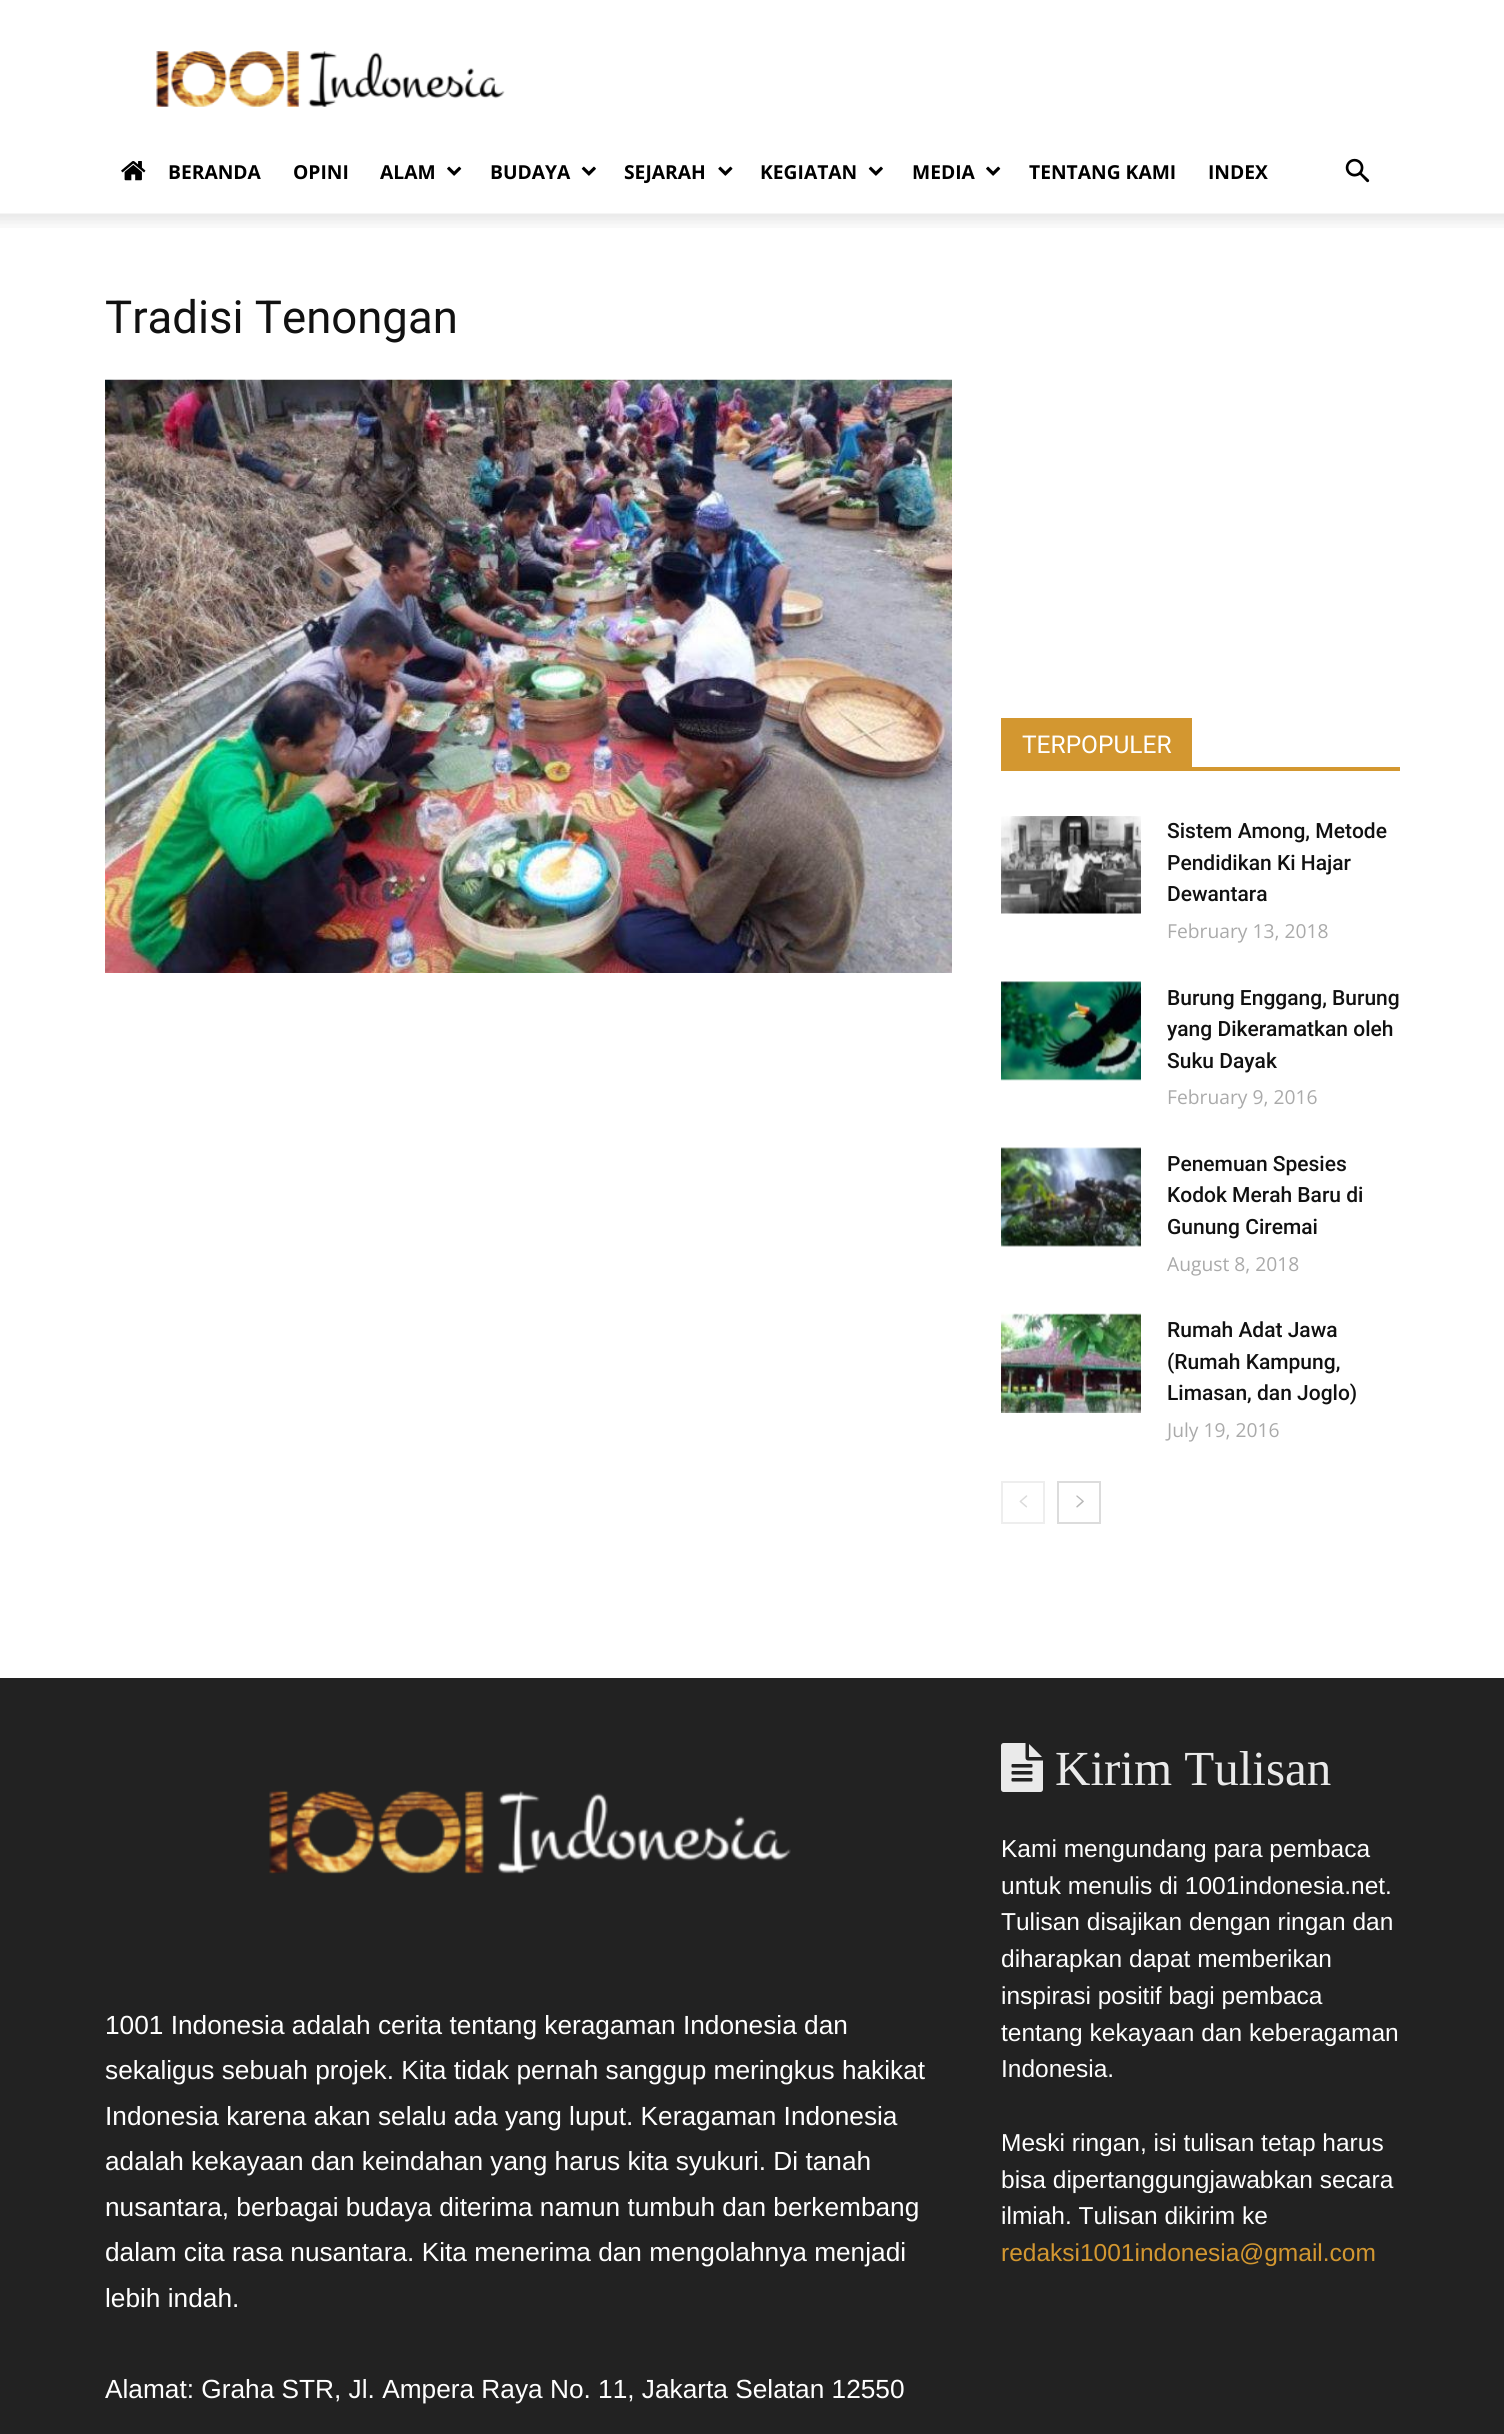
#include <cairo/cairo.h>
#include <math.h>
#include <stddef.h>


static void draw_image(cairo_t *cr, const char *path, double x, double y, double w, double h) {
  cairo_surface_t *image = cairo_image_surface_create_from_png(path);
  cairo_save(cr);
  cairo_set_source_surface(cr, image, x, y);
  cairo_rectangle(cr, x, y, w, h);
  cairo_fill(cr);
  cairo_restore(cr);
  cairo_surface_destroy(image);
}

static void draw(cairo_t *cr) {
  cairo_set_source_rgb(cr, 1, 1, 1);
  cairo_paint(cr);
  draw_image(cr, "images/1.png", 156, 51, 349, 56);
  draw_image(cr, "images/2.png", 121, 161, 25, 20);
  draw_image(cr, "images/3.png", 447, 166, 15, 10);
  draw_image(cr, "images/4.png", 581, 166, 15, 10);
  draw_image(cr, "images/5.png", 718, 166, 15, 10);
  draw_image(cr, "images/4.png", 868, 166, 15, 10);
  draw_image(cr, "images/3.png", 986, 166, 15, 10);
  draw_image(cr, "images/6.png", 1345, 158, 25, 25);
  draw_image(cr, "images/7.png", 0, 213, 1504, 15);
  draw_image(cr, "images/8.png", 105, 379, 847, 594);
  cairo_set_source_rgb(cr, 211 / 255.0, 151 / 255.0, 48 / 255.0);
  cairo_rectangle(cr, 1001, 767, 399, 4);
  cairo_fill(cr);
  cairo_rectangle(cr, 1001, 718, 191, 49);
  cairo_fill(cr);
  draw_image(cr, "images/9.png", 1001, 816, 140, 98);
  draw_image(cr, "images/10.png", 1001, 981, 140, 100);
  draw_image(cr, "images/11.png", 1001, 1147, 140, 100);
  draw_image(cr, "images/12.png", 1001, 1313, 140, 100);
  cairo_rectangle(cr, 1002, 1482, 42, 41);
  cairo_set_source_rgb(cr, 238 / 255.0, 238 / 255.0, 238 / 255.0);
  cairo_stroke(cr);
  draw_image(cr, "images/13.png", 1019, 1495, 9, 13);
  cairo_rectangle(cr, 1058, 1482, 42, 41);
  cairo_set_source_rgb(cr, 220 / 255.0, 220 / 255.0, 220 / 255.0);
  cairo_stroke(cr);
  draw_image(cr, "images/14.png", 1076, 1495, 8, 13);
  cairo_set_source_rgb(cr, 34 / 255.0, 34 / 255.0, 34 / 255.0);
  cairo_rectangle(cr, 0, 1678, 1504, 756);
  cairo_fill(cr);
  draw_image(cr, "images/15.png", 269, 1790, 522, 84);
  draw_image(cr, "images/16.png", 1001, 1743, 42, 49);
  cairo_select_font_face(cr, "Open Sans", CAIRO_FONT_SLANT_NORMAL, CAIRO_FONT_WEIGHT_BOLD);
  cairo_set_font_size(cr, 19.25);
  cairo_set_source_rgb(cr, 0, 0, 0);
  cairo_move_to(cr, 168, 179);
  cairo_show_text(cr, "BERANDA");
  cairo_move_to(cr, 293, 179);
  cairo_show_text(cr, "OPINI");
  cairo_move_to(cr, 380, 179);
  cairo_show_text(cr, "ALAM");
  cairo_move_to(cr, 490, 179);
  cairo_show_text(cr, "BUDAYA");
  cairo_move_to(cr, 624, 179);
  cairo_show_text(cr, "SEJARAH");
  cairo_move_to(cr, 760, 179);
  cairo_show_text(cr, "KEGIATAN");
  cairo_move_to(cr, 912, 179);
  cairo_show_text(cr, "MEDIA");
  cairo_move_to(cr, 1029, 179);
  cairo_show_text(cr, "TENTANG KAMI");
  cairo_move_to(cr, 1208, 179);
  cairo_show_text(cr, "INDEX");
  cairo_select_font_face(cr, "Roboto", CAIRO_FONT_SLANT_NORMAL, CAIRO_FONT_WEIGHT_NORMAL);
  cairo_set_font_size(cr, 45.5);
  cairo_set_source_rgb(cr, 17 / 255.0, 17 / 255.0, 17 / 255.0);
  cairo_move_to(cr, 105, 333);
  cairo_show_text(cr, "Tradisi Tenongan");
  cairo_set_font_size(cr, 24.5);
  cairo_set_source_rgb(cr, 1, 1, 1);
  cairo_move_to(cr, 1022, 753);
  cairo_show_text(cr, "TERPOPULER");
  cairo_select_font_face(cr, "Roboto Medium", CAIRO_FONT_SLANT_NORMAL, CAIRO_FONT_WEIGHT_NORMAL);
  cairo_set_font_size(cr, 21);
  cairo_set_source_rgb(cr, 17 / 255.0, 17 / 255.0, 17 / 255.0);
  cairo_move_to(cr, 1167, 838);
  cairo_show_text(cr, "Sistem Among, Metode");
  cairo_move_to(cr, 1167, 870);
  cairo_show_text(cr, "Pendidikan Ki Hajar");
  cairo_move_to(cr, 1167, 901);
  cairo_show_text(cr, "Dewantara");
  cairo_select_font_face(cr, "Open Sans", CAIRO_FONT_SLANT_NORMAL, CAIRO_FONT_WEIGHT_NORMAL);
  cairo_set_font_size(cr, 19.25);
  cairo_set_source_rgb(cr, 170 / 255.0, 170 / 255.0, 170 / 255.0);
  cairo_move_to(cr, 1167, 938);
  cairo_show_text(cr, "February 13, 2018");
  cairo_select_font_face(cr, "Roboto Medium", CAIRO_FONT_SLANT_NORMAL, CAIRO_FONT_WEIGHT_NORMAL);
  cairo_set_font_size(cr, 21);
  cairo_set_source_rgb(cr, 17 / 255.0, 17 / 255.0, 17 / 255.0);
  cairo_move_to(cr, 1167, 1005);
  cairo_show_text(cr, "Burung Enggang, Burung");
  cairo_move_to(cr, 1167, 1036);
  cairo_show_text(cr, "yang Dikeramatkan oleh");
  cairo_move_to(cr, 1167, 1068);
  cairo_show_text(cr, "Suku Dayak");
  cairo_select_font_face(cr, "Open Sans", CAIRO_FONT_SLANT_NORMAL, CAIRO_FONT_WEIGHT_NORMAL);
  cairo_set_font_size(cr, 19.25);
  cairo_set_source_rgb(cr, 170 / 255.0, 170 / 255.0, 170 / 255.0);
  cairo_move_to(cr, 1167, 1104);
  cairo_show_text(cr, "February 9, 2016");
  cairo_select_font_face(cr, "Roboto Medium", CAIRO_FONT_SLANT_NORMAL, CAIRO_FONT_WEIGHT_NORMAL);
  cairo_set_font_size(cr, 21);
  cairo_set_source_rgb(cr, 17 / 255.0, 17 / 255.0, 17 / 255.0);
  cairo_move_to(cr, 1167, 1171);
  cairo_show_text(cr, "Penemuan Spesies");
  cairo_move_to(cr, 1167, 1202);
  cairo_show_text(cr, "Kodok Merah Baru di");
  cairo_move_to(cr, 1167, 1234);
  cairo_show_text(cr, "Gunung Ciremai");
  cairo_select_font_face(cr, "Open Sans", CAIRO_FONT_SLANT_NORMAL, CAIRO_FONT_WEIGHT_NORMAL);
  cairo_set_font_size(cr, 19.25);
  cairo_set_source_rgb(cr, 170 / 255.0, 170 / 255.0, 170 / 255.0);
  cairo_move_to(cr, 1167, 1271);
  cairo_show_text(cr, "August 8, 2018");
  cairo_select_font_face(cr, "Roboto Medium", CAIRO_FONT_SLANT_NORMAL, CAIRO_FONT_WEIGHT_NORMAL);
  cairo_set_font_size(cr, 21);
  cairo_set_source_rgb(cr, 17 / 255.0, 17 / 255.0, 17 / 255.0);
  cairo_move_to(cr, 1167, 1337);
  cairo_show_text(cr, "Rumah Adat Jawa");
  cairo_move_to(cr, 1167, 1369);
  cairo_show_text(cr, "(Rumah Kampung,");
  cairo_move_to(cr, 1167, 1400);
  cairo_show_text(cr, "Limasan, dan Joglo)");
  cairo_select_font_face(cr, "Open Sans", CAIRO_FONT_SLANT_NORMAL, CAIRO_FONT_WEIGHT_NORMAL);
  cairo_set_font_size(cr, 19.25);
  cairo_set_source_rgb(cr, 170 / 255.0, 170 / 255.0, 170 / 255.0);
  cairo_move_to(cr, 1167, 1437);
  cairo_show_text(cr, "July 19, 2016");
  cairo_select_font_face(cr, "Liberation Sans", CAIRO_FONT_SLANT_NORMAL, CAIRO_FONT_WEIGHT_NORMAL);
  cairo_set_font_size(cr, 26.25);
  cairo_set_source_rgb(cr, 1, 1, 1);
  cairo_move_to(cr, 105, 2034);
  cairo_show_text(cr, "1001 Indonesia adalah cerita tentang keragaman Indonesia dan");
  cairo_move_to(cr, 105, 2079);
  cairo_show_text(cr, "sekaligus sebuah projek. Kita tidak pernah sanggup meringkus hakikat");
  cairo_move_to(cr, 105, 2125);
  cairo_show_text(cr, "Indonesia karena akan selalu ada yang luput. Keragaman Indonesia");
  cairo_move_to(cr, 105, 2170);
  cairo_show_text(cr, "adalah kekayaan dan keindahan yang harus kita syukuri. Di tanah");
  cairo_move_to(cr, 105, 2216);
  cairo_show_text(cr, "nusantara, berbagai budaya diterima namun tumbuh dan berkembang");
  cairo_move_to(cr, 105, 2261);
  cairo_show_text(cr, "dalam cita rasa nusantara. Kita menerima dan mengolahnya menjadi");
  cairo_move_to(cr, 105, 2307);
  cairo_show_text(cr, "lebih indah.");
  cairo_move_to(cr, 105, 2398);
  cairo_show_text(cr, "Alamat: Graha STR, Jl. Ampera Raya No. 11, Jakarta Selatan 12550");
  cairo_select_font_face(cr, "Liberation Serif", CAIRO_FONT_SLANT_NORMAL, CAIRO_FONT_WEIGHT_NORMAL);
  cairo_set_font_size(cr, 49);
  cairo_set_source_rgb(cr, 234 / 255.0, 234 / 255.0, 234 / 255.0);
  cairo_move_to(cr, 1055, 1785);
  cairo_show_text(cr, "Kirim Tulisan");
  cairo_select_font_face(cr, "Liberation Sans", CAIRO_FONT_SLANT_NORMAL, CAIRO_FONT_WEIGHT_NORMAL);
  cairo_set_font_size(cr, 24.5);
  cairo_set_source_rgb(cr, 1, 1, 1);
  cairo_move_to(cr, 1001, 1857);
  cairo_show_text(cr, "Kami mengundang para pembaca");
  cairo_move_to(cr, 1001, 1894);
  cairo_show_text(cr, "untuk menulis di 1001indonesia.net.");
  cairo_move_to(cr, 1001, 1930);
  cairo_show_text(cr, "Tulisan disajikan dengan ringan dan");
  cairo_move_to(cr, 1001, 1967);
  cairo_show_text(cr, "diharapkan dapat memberikan");
  cairo_move_to(cr, 1001, 2004);
  cairo_show_text(cr, "inspirasi positif bagi pembaca");
  cairo_move_to(cr, 1001, 2041);
  cairo_show_text(cr, "tentang kekayaan dan keberagaman");
  cairo_move_to(cr, 1001, 2077);
  cairo_show_text(cr, "Indonesia.");
  cairo_move_to(cr, 1001, 2151);
  cairo_show_text(cr, "Meski ringan, isi tulisan tetap harus");
  cairo_move_to(cr, 1001, 2188);
  cairo_show_text(cr, "bisa dipertanggungjawabkan secara");
  cairo_move_to(cr, 1001, 2224);
  cairo_show_text(cr, "ilmiah. Tulisan dikirim ke");
  cairo_set_source_rgb(cr, 211 / 255.0, 151 / 255.0, 48 / 255.0);
  cairo_move_to(cr, 1001, 2261);
  cairo_show_text(cr, "redaksi1001indonesia@gmail.com");
}

int main(void) {
  cairo_surface_t *surface = cairo_image_surface_create(CAIRO_FORMAT_RGB24, 1504, 2434);
  cairo_t *cr = cairo_create(surface);
  cairo_font_options_t *options = cairo_font_options_create();
  cairo_font_options_set_hint_metrics(options, CAIRO_HINT_METRICS_OFF);
  cairo_font_options_set_hint_style(options, CAIRO_HINT_STYLE_NONE);
  cairo_set_font_options(cr, options);
  cairo_set_miter_limit(cr, 4);
  draw(cr);
  cairo_surface_write_to_png(surface, "out.png");
  cairo_font_options_destroy(options);
  cairo_destroy(cr);
  cairo_surface_destroy(surface);
  return 0;
}
